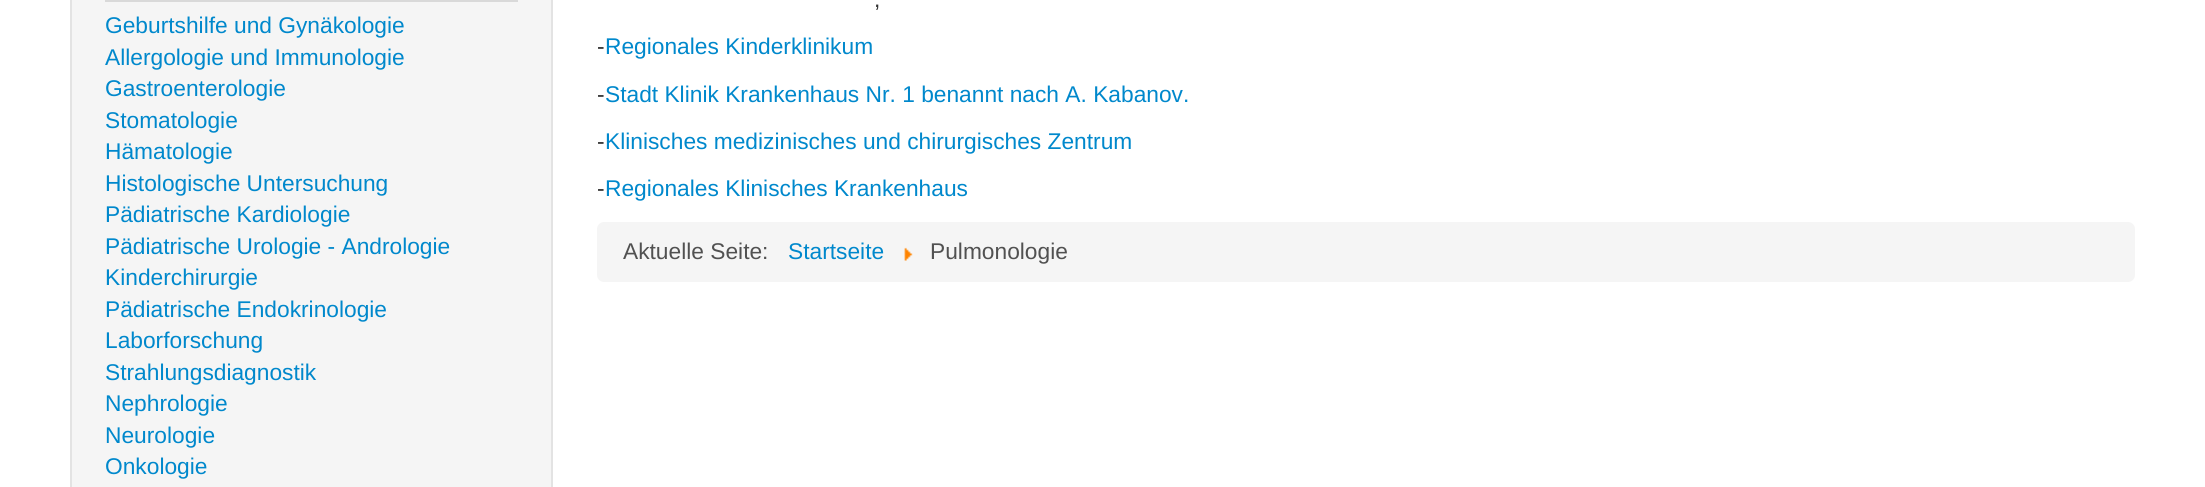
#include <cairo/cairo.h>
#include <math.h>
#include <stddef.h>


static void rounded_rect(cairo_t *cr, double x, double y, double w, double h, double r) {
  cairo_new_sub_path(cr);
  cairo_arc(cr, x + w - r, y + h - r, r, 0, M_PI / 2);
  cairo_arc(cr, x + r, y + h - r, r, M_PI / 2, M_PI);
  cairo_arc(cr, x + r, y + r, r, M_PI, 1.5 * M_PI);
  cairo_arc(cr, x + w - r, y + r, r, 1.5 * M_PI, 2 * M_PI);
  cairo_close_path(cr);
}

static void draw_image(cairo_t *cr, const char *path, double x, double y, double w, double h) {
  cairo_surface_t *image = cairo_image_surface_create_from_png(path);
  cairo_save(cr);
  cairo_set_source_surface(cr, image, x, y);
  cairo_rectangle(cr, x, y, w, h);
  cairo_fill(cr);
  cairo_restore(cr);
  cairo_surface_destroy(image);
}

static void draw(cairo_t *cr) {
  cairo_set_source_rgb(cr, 1, 1, 1);
  cairo_paint(cr);
  cairo_set_source_rgb(cr, 245 / 255.0, 245 / 255.0, 245 / 255.0);
  cairo_rectangle(cr, 71, -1, 481, 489);
  cairo_fill_preserve(cr);
  cairo_set_source_rgb(cr, 227 / 255.0, 227 / 255.0, 227 / 255.0);
  cairo_stroke(cr);
  cairo_set_source_rgb(cr, 217 / 255.0, 217 / 255.0, 217 / 255.0);
  cairo_rectangle(cr, 105, 0, 413, 2);
  cairo_fill(cr);
  cairo_set_source_rgb(cr, 245 / 255.0, 245 / 255.0, 245 / 255.0);
  rounded_rect(cr, 597, 222, 1538, 60, 7);
  cairo_fill(cr);
  draw_image(cr, "images/1.png", 904, 247, 9, 14);
  cairo_select_font_face(cr, "Liberation Sans", CAIRO_FONT_SLANT_NORMAL, CAIRO_FONT_WEIGHT_NORMAL);
  cairo_set_font_size(cr, 22.75);
  cairo_set_source_rgb(cr, 0, 136 / 255.0, 204 / 255.0);
  cairo_move_to(cr, 105, 33);
  cairo_show_text(cr, "Geburtshilfe und Gynäkologie");
  cairo_move_to(cr, 105, 65);
  cairo_show_text(cr, "Allergologie und Immunologie");
  cairo_move_to(cr, 105, 96);
  cairo_show_text(cr, "Gastroenterologie");
  cairo_move_to(cr, 105, 128);
  cairo_show_text(cr, "Stomatologie");
  cairo_move_to(cr, 105, 159);
  cairo_show_text(cr, "Hämatologie");
  cairo_move_to(cr, 105, 191);
  cairo_show_text(cr, "Histologische Untersuchung");
  cairo_move_to(cr, 105, 222);
  cairo_show_text(cr, "Pädiatrische Kardiologie");
  cairo_move_to(cr, 105, 254);
  cairo_show_text(cr, "Pädiatrische Urologie - Andrologie");
  cairo_move_to(cr, 105, 285);
  cairo_show_text(cr, "Kinderchirurgie");
  cairo_move_to(cr, 105, 317);
  cairo_show_text(cr, "Pädiatrische Endokrinologie");
  cairo_move_to(cr, 105, 348);
  cairo_show_text(cr, "Laborforschung");
  cairo_move_to(cr, 105, 380);
  cairo_show_text(cr, "Strahlungsdiagnostik");
  cairo_move_to(cr, 105, 411);
  cairo_show_text(cr, "Nephrologie");
  cairo_move_to(cr, 105, 443);
  cairo_show_text(cr, "Neurologie");
  cairo_move_to(cr, 105, 474);
  cairo_show_text(cr, "Onkologie");
  cairo_set_source_rgb(cr, 51 / 255.0, 51 / 255.0, 51 / 255.0);
  cairo_move_to(cr, 874, 7);
  cairo_show_text(cr, ",");
  cairo_move_to(cr, 597, 54);
  cairo_show_text(cr, "-");
  cairo_set_source_rgb(cr, 0, 136 / 255.0, 204 / 255.0);
  cairo_move_to(cr, 605, 54);
  cairo_show_text(cr, "Regionales Kinderklinikum");
  cairo_set_source_rgb(cr, 51 / 255.0, 51 / 255.0, 51 / 255.0);
  cairo_move_to(cr, 597, 102);
  cairo_show_text(cr, "-");
  cairo_set_source_rgb(cr, 0, 136 / 255.0, 204 / 255.0);
  cairo_move_to(cr, 605, 102);
  cairo_show_text(cr, "Stadt Klinik Krankenhaus Nr. 1 benannt nach A. Kabanov.");
  cairo_set_source_rgb(cr, 51 / 255.0, 51 / 255.0, 51 / 255.0);
  cairo_move_to(cr, 597, 149);
  cairo_show_text(cr, "-");
  cairo_set_source_rgb(cr, 0, 136 / 255.0, 204 / 255.0);
  cairo_move_to(cr, 605, 149);
  cairo_show_text(cr, "Klinisches medizinisches und chirurgisches Zentrum");
  cairo_set_source_rgb(cr, 51 / 255.0, 51 / 255.0, 51 / 255.0);
  cairo_move_to(cr, 597, 196);
  cairo_show_text(cr, "-");
  cairo_set_source_rgb(cr, 0, 136 / 255.0, 204 / 255.0);
  cairo_move_to(cr, 605, 196);
  cairo_show_text(cr, "Regionales Klinisches Krankenhaus");
  cairo_set_source_rgb(cr, 81 / 255.0, 81 / 255.0, 81 / 255.0);
  cairo_move_to(cr, 623, 259);
  cairo_show_text(cr, "Aktuelle Seite:");
  cairo_set_source_rgb(cr, 0, 136 / 255.0, 204 / 255.0);
  cairo_move_to(cr, 788, 259);
  cairo_show_text(cr, "Startseite");
  cairo_set_source_rgb(cr, 81 / 255.0, 81 / 255.0, 81 / 255.0);
  cairo_move_to(cr, 930, 259);
  cairo_show_text(cr, "Pulmonologie");
}

int main(void) {
  cairo_surface_t *surface = cairo_image_surface_create(CAIRO_FORMAT_RGB24, 2205, 487);
  cairo_t *cr = cairo_create(surface);
  cairo_font_options_t *options = cairo_font_options_create();
  cairo_font_options_set_hint_metrics(options, CAIRO_HINT_METRICS_OFF);
  cairo_font_options_set_hint_style(options, CAIRO_HINT_STYLE_NONE);
  cairo_set_font_options(cr, options);
  cairo_set_miter_limit(cr, 4);
  draw(cr);
  cairo_surface_write_to_png(surface, "out.png");
  cairo_font_options_destroy(options);
  cairo_destroy(cr);
  cairo_surface_destroy(surface);
  return 0;
}
